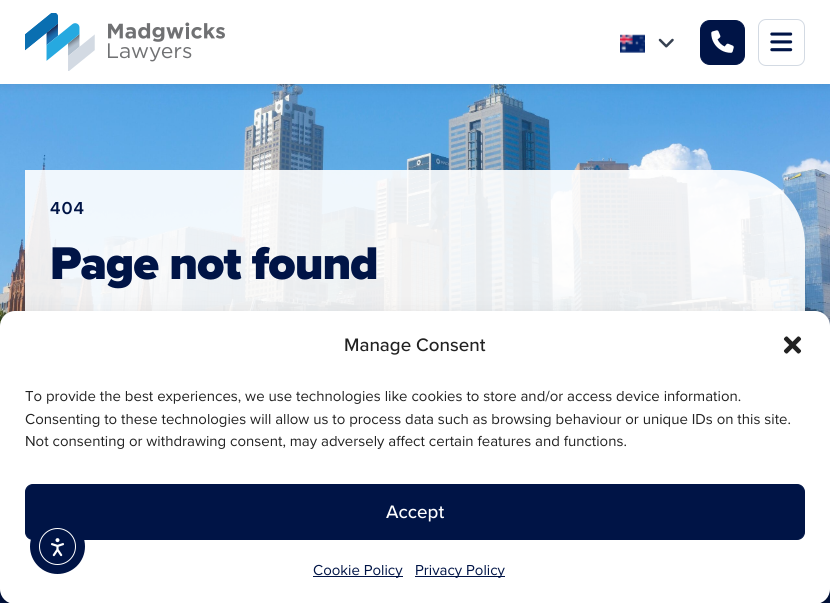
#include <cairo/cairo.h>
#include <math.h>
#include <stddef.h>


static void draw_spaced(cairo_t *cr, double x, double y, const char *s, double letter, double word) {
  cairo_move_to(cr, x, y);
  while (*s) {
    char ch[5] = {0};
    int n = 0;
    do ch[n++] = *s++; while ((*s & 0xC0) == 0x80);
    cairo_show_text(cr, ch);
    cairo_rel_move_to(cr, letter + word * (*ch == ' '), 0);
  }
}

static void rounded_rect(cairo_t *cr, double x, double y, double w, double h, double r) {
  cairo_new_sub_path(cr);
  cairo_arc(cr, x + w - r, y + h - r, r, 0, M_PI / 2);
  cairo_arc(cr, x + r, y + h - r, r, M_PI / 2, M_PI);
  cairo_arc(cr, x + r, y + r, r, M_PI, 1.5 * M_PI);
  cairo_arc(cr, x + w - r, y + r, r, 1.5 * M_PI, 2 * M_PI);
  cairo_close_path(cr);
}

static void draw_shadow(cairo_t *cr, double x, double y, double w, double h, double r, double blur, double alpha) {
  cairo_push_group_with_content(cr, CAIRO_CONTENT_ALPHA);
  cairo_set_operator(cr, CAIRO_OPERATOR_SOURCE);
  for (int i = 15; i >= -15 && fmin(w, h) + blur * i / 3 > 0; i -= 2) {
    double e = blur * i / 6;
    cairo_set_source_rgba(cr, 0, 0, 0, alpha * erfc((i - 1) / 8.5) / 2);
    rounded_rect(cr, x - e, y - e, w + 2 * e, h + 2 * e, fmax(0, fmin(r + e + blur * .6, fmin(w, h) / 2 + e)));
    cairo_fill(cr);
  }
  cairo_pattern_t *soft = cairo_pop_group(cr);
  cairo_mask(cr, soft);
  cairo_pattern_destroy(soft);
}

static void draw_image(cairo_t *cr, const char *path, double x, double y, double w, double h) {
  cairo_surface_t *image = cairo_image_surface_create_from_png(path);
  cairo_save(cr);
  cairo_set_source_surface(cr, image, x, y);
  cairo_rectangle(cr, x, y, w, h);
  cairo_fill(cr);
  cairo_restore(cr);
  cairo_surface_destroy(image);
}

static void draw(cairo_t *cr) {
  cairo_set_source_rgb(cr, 1, 1, 1);
  cairo_paint(cr);
  draw_image(cr, "images/6.png", 0, 84, 830, 242);
  cairo_set_source_rgb(cr, 0, 0, 0);
  draw_shadow(cr, 0, 0, 830, 84, 0, 6, 0.1);
  cairo_set_source_rgb(cr, 1, 1, 1);
  cairo_rectangle(cr, 0, 0, 830, 84);
  cairo_fill(cr);
  draw_image(cr, "images/1.png", 25, 13, 200, 58);
  draw_image(cr, "images/2.png", 620, 34, 25, 19);
  draw_image(cr, "images/3.png", 658, 38, 16, 10);
  cairo_set_source_rgb(cr, 0, 20 / 255.0, 70 / 255.0);
  rounded_rect(cr, 700.5, 20.5, 44, 44, 9.5);
  cairo_fill_preserve(cr);
  cairo_set_line_width(cr, 1);
  cairo_stroke(cr);
  draw_image(cr, "images/4.png", 711, 30, 23, 23);
  rounded_rect(cr, 758.5, 19.5, 46, 46, 7.5);
  cairo_set_source_rgb(cr, 211 / 255.0, 218 / 255.0, 227 / 255.0);
  cairo_stroke(cr);
  draw_image(cr, "images/5.png", 770, 32, 23, 20);
  cairo_set_source_rgba(cr, 1, 1, 1, 0.9);
  cairo_new_path(cr);
  cairo_move_to(cr, 25, 170);
  cairo_line_to(cr, 730, 170);
  cairo_curve_to(cr, 771.5, 170, 805, 203.5, 805, 245);
  cairo_line_to(cr, 805, 365);
  cairo_line_to(cr, 25, 365);
  cairo_close_path(cr);
  cairo_fill(cr);
  cairo_set_source_rgb(cr, 0, 20 / 255.0, 70 / 255.0);
  cairo_rectangle(cr, 0, 589, 830, 14);
  cairo_fill(cr);
  cairo_set_source_rgb(cr, 0, 0, 0);
  draw_shadow(cr, 0, 319, 830, 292, 15, 4, 0.23);
  draw_shadow(cr, 0, 324, 830, 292, 15, 12.5, 0.19);
  cairo_set_source_rgb(cr, 1, 1, 1);
  rounded_rect(cr, 0, 311, 830, 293, 15);
  cairo_fill(cr);
  draw_image(cr, "images/7.png", 783, 336, 19, 18);
  cairo_set_source_rgb(cr, 0, 20 / 255.0, 70 / 255.0);
  rounded_rect(cr, 25.5, 484.5, 779, 55, 7.5);
  cairo_fill_preserve(cr);
  cairo_stroke(cr);
  cairo_rectangle(cr, 313, 576, 90, 1);
  cairo_fill(cr);
  cairo_rectangle(cr, 415, 576, 90, 1);
  cairo_fill(cr);
  cairo_arc(cr, 57.5, 546.5, 27.5, 0, 2 * M_PI);
  cairo_fill(cr);
  cairo_arc(cr, 57.5, 546.5, 18, 0, 2 * M_PI);
  cairo_set_source_rgb(cr, 1, 1, 1);
  cairo_stroke(cr);
  draw_image(cr, "images/8.png", 51, 538, 13, 19);
  cairo_select_font_face(cr, "Proxima Nova SemiBold", CAIRO_FONT_SLANT_NORMAL, CAIRO_FONT_WEIGHT_NORMAL);
  cairo_set_font_size(cr, 18);
  cairo_set_source_rgb(cr, 0, 20 / 255.0, 70 / 255.0);
  draw_spaced(cr, 50, 214, "404", 1, 0);
  cairo_select_font_face(cr, "Proxima Nova Black", CAIRO_FONT_SLANT_NORMAL, CAIRO_FONT_WEIGHT_NORMAL);
  cairo_set_font_size(cr, 47.5);
  draw_spaced(cr, 50, 279, "Page not found", -1, 0);
  cairo_select_font_face(cr, "Proxima Nova Medium", CAIRO_FONT_SLANT_NORMAL, CAIRO_FONT_WEIGHT_NORMAL);
  cairo_set_font_size(cr, 18.75);
  cairo_set_source_rgb(cr, 34 / 255.0, 34 / 255.0, 34 / 255.0);
  cairo_move_to(cr, 344, 351);
  cairo_show_text(cr, "Manage Consent");
  cairo_select_font_face(cr, "Proxima Nova", CAIRO_FONT_SLANT_NORMAL, CAIRO_FONT_WEIGHT_NORMAL);
  cairo_set_font_size(cr, 15);
  cairo_move_to(cr, 25, 401);
  cairo_show_text(cr, "To provide the best experiences, we use technologies like cookies to store and/or access device information.");
  cairo_move_to(cr, 25, 424);
  cairo_show_text(cr, "Consenting to these technologies will allow us to process data such as browsing behaviour or unique IDs on this site.");
  cairo_move_to(cr, 25, 446);
  cairo_show_text(cr, "Not consenting or withdrawing consent, may adversely affect certain features and functions.");
  cairo_select_font_face(cr, "Proxima Nova Medium", CAIRO_FONT_SLANT_NORMAL, CAIRO_FONT_WEIGHT_NORMAL);
  cairo_set_font_size(cr, 18.75);
  cairo_set_source_rgb(cr, 1, 1, 1);
  cairo_move_to(cr, 386, 518);
  cairo_show_text(cr, "Accept");
  cairo_select_font_face(cr, "Proxima Nova", CAIRO_FONT_SLANT_NORMAL, CAIRO_FONT_WEIGHT_NORMAL);
  cairo_set_font_size(cr, 15);
  cairo_set_source_rgb(cr, 0, 20 / 255.0, 70 / 255.0);
  cairo_move_to(cr, 313, 575);
  cairo_show_text(cr, "Cookie Policy");
  cairo_move_to(cr, 415, 575);
  cairo_show_text(cr, "Privacy Policy");
}

int main(void) {
  cairo_surface_t *surface = cairo_image_surface_create(CAIRO_FORMAT_RGB24, 830, 603);
  cairo_t *cr = cairo_create(surface);
  cairo_font_options_t *options = cairo_font_options_create();
  cairo_font_options_set_hint_metrics(options, CAIRO_HINT_METRICS_OFF);
  cairo_font_options_set_hint_style(options, CAIRO_HINT_STYLE_NONE);
  cairo_set_font_options(cr, options);
  cairo_set_miter_limit(cr, 4);
  draw(cr);
  cairo_surface_write_to_png(surface, "out.png");
  cairo_font_options_destroy(options);
  cairo_destroy(cr);
  cairo_surface_destroy(surface);
  return 0;
}
